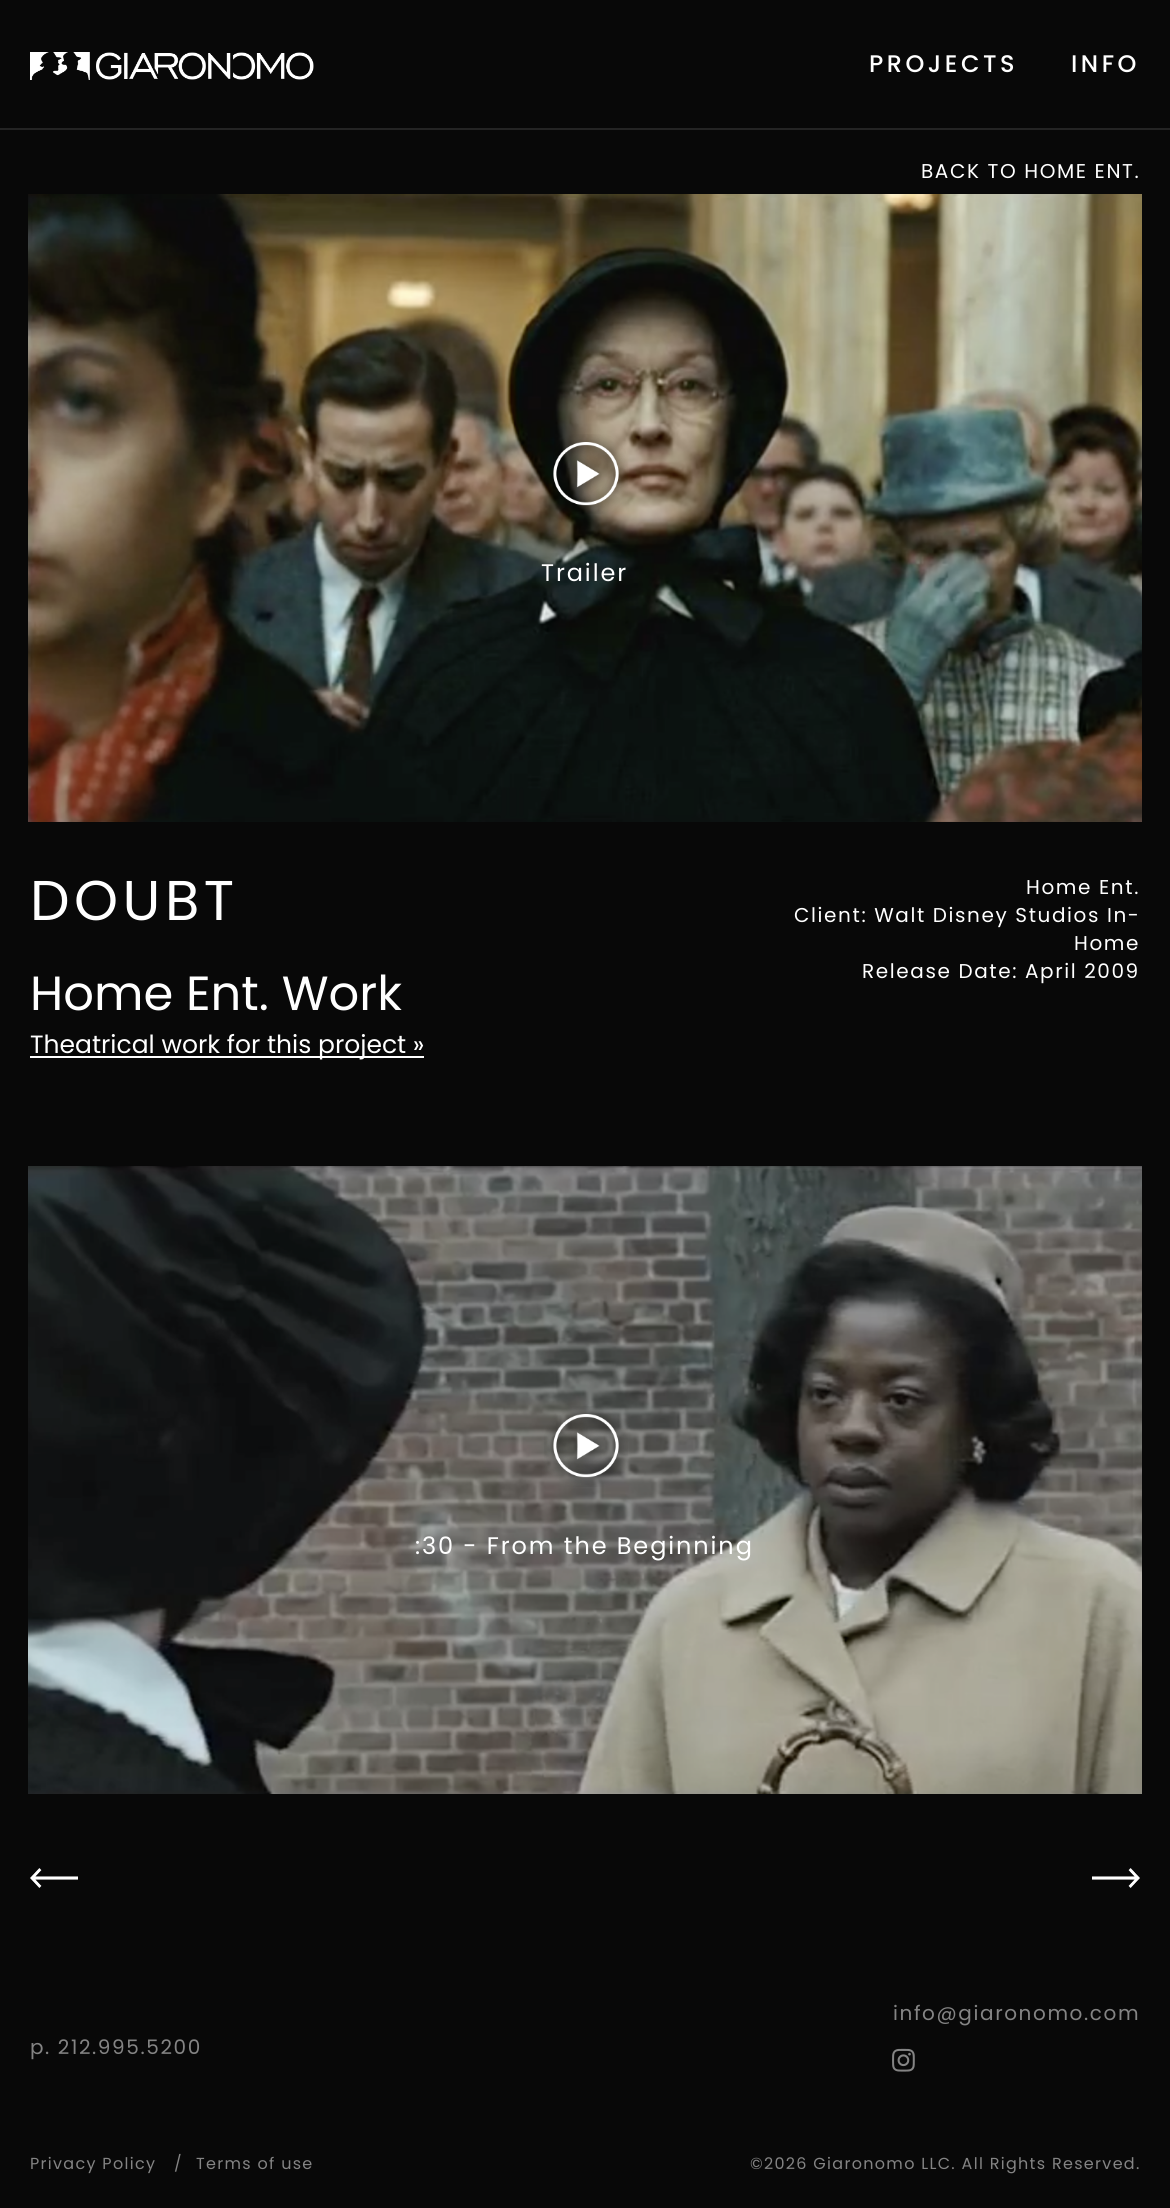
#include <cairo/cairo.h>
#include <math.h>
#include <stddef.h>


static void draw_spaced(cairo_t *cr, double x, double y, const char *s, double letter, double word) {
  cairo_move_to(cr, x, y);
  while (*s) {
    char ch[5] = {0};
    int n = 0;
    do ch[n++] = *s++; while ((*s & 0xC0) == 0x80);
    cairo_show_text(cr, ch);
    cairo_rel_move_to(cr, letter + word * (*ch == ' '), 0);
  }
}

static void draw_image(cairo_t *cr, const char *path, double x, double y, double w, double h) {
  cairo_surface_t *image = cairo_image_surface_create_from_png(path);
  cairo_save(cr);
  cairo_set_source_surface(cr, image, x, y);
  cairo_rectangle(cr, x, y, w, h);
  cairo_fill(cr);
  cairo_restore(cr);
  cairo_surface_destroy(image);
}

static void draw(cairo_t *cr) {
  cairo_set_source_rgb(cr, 8 / 255.0, 8 / 255.0, 8 / 255.0);
  cairo_paint(cr);
  cairo_set_source_rgb(cr, 36 / 255.0, 36 / 255.0, 36 / 255.0);
  cairo_rectangle(cr, 0, 128, 1170, 2);
  cairo_fill(cr);
  draw_image(cr, "images/1.png", 30, 52, 284, 28);
  draw_image(cr, "images/2.png", 28, 194, 1114, 628);
  draw_image(cr, "images/3.png", 553, 434, 75, 80);
  cairo_set_source_rgb(cr, 1, 1, 1);
  cairo_rectangle(cr, 30, 1056, 394, 2);
  cairo_fill(cr);
  draw_image(cr, "images/4.png", 28, 1166, 1114, 628);
  draw_image(cr, "images/5.png", 544, 1406, 84, 81);
  draw_image(cr, "images/6.png", 30, 1868, 48, 20);
  draw_image(cr, "images/7.png", 1092, 1868, 48, 20);
  draw_image(cr, "images/8.png", 892, 2048, 23, 24);
  cairo_select_font_face(cr, "Poppins Medium", CAIRO_FONT_SLANT_NORMAL, CAIRO_FONT_WEIGHT_NORMAL);
  cairo_set_font_size(cr, 24);
  draw_spaced(cr, 869, 72, "PROJECTS", 3.5, 0);
  draw_spaced(cr, 1071, 72, "INFO", 3.5, 0);
  cairo_select_font_face(cr, "Poppins", CAIRO_FONT_SLANT_NORMAL, CAIRO_FONT_WEIGHT_NORMAL);
  cairo_set_font_size(cr, 20);
  draw_spaced(cr, 921, 178, "BACK TO HOME ENT.", 1.6, 0);
  cairo_set_font_size(cr, 24);
  draw_spaced(cr, 541, 581, "Trailer", 1.9, 0);
  cairo_set_font_size(cr, 56);
  draw_spaced(cr, 30, 920, "DOUBT", 4.5, 0);
  cairo_set_font_size(cr, 48);
  cairo_move_to(cr, 30, 1010);
  cairo_show_text(cr, "Home Ent. Work");
  cairo_set_font_size(cr, 25);
  cairo_move_to(cr, 30, 1053);
  cairo_show_text(cr, "Theatrical work for this project »");
  cairo_set_font_size(cr, 20);
  draw_spaced(cr, 1026, 894, "Home Ent.", 1.6, 0);
  draw_spaced(cr, 794, 922, "Client: Walt Disney Studios In-", 1.6, 0);
  draw_spaced(cr, 1074, 950, "Home", 1.6, 0);
  draw_spaced(cr, 862, 978, "Release Date: April 2009", 1.6, 0);
  cairo_set_font_size(cr, 24);
  draw_spaced(cr, 415, 1554, ":30 - From the Beginning", 1.9, 0);
  cairo_set_font_size(cr, 20);
  cairo_set_source_rgb(cr, 132 / 255.0, 132 / 255.0, 132 / 255.0);
  draw_spaced(cr, 893, 2020, "info@giaronomo.com", 1.6, 0);
  draw_spaced(cr, 30, 2054, "p. 212.995.5200", 1.6, 0);
  cairo_set_font_size(cr, 16);
  draw_spaced(cr, 30, 2169, "Privacy Policy", 1.3, 0);
  cairo_move_to(cr, 174, 2169);
  cairo_show_text(cr, "/");
  draw_spaced(cr, 196, 2169, "Terms of use", 1.3, 0);
  draw_spaced(cr, 750, 2169, "©2026 Giaronomo LLC. All Rights Reserved.", 1.3, 0);
}

int main(void) {
  cairo_surface_t *surface = cairo_image_surface_create(CAIRO_FORMAT_RGB24, 1170, 2208);
  cairo_t *cr = cairo_create(surface);
  cairo_font_options_t *options = cairo_font_options_create();
  cairo_font_options_set_hint_metrics(options, CAIRO_HINT_METRICS_OFF);
  cairo_font_options_set_hint_style(options, CAIRO_HINT_STYLE_NONE);
  cairo_set_font_options(cr, options);
  cairo_set_miter_limit(cr, 4);
  draw(cr);
  cairo_surface_write_to_png(surface, "out.png");
  cairo_font_options_destroy(options);
  cairo_destroy(cr);
  cairo_surface_destroy(surface);
  return 0;
}
